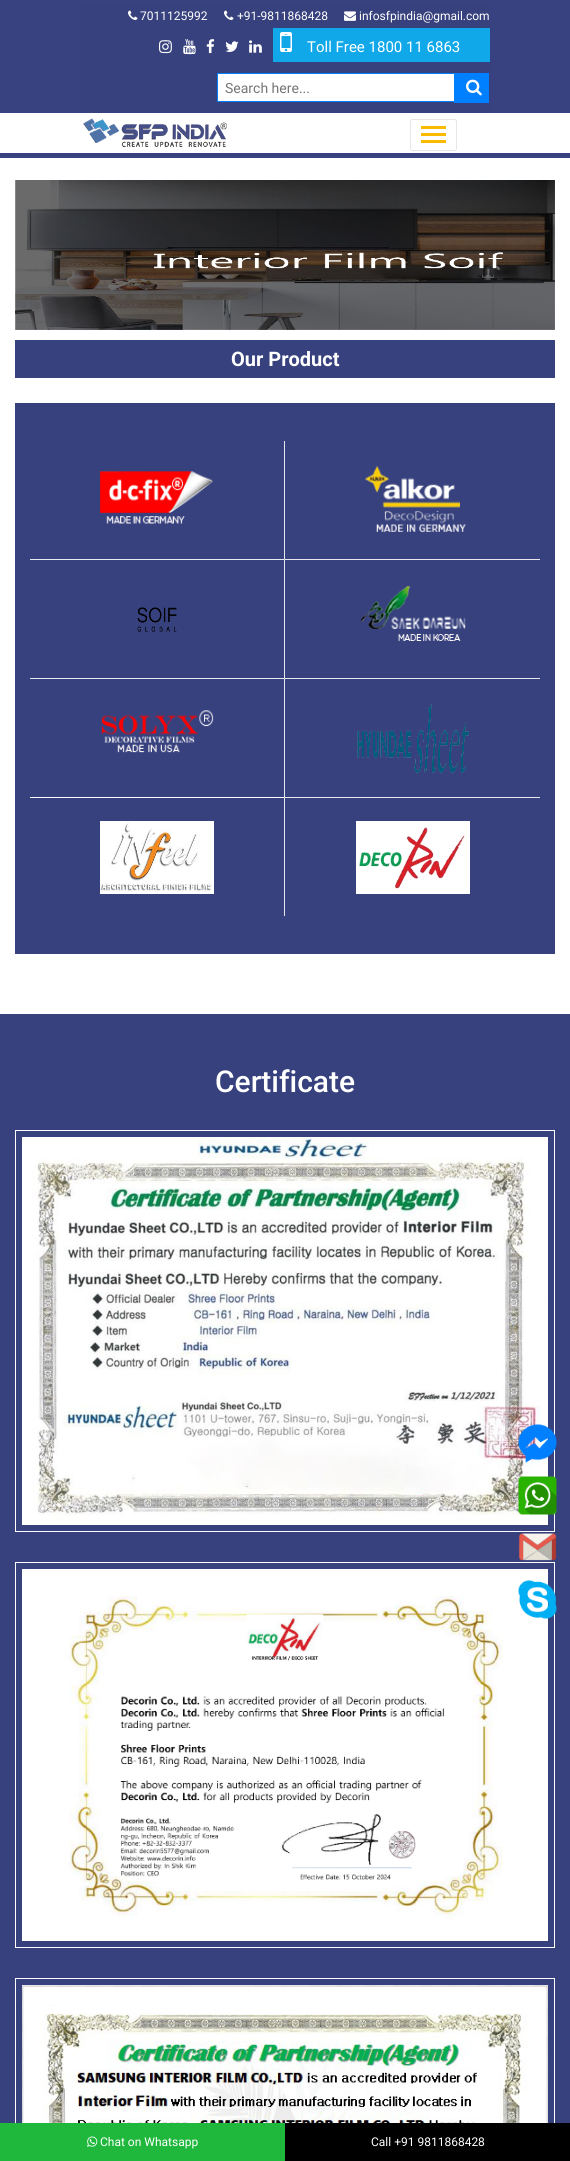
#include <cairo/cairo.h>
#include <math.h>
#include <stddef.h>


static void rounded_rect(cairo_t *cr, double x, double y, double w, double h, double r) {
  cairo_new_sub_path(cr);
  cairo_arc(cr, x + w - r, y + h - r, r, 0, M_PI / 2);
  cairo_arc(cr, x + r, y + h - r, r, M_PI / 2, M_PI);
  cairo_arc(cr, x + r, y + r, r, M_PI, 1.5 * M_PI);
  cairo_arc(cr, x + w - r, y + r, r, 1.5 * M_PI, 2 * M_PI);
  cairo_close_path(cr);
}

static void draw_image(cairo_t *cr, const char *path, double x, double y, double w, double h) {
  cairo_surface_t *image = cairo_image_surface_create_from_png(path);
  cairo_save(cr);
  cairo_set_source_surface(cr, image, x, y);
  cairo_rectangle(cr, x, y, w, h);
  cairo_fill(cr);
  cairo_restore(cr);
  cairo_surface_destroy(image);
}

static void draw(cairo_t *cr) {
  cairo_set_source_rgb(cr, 1, 1, 1);
  cairo_paint(cr);
  cairo_set_source_rgb(cr, 56 / 255.0, 66 / 255.0, 128 / 255.0);
  cairo_rectangle(cr, 0, 0, 570, 158);
  cairo_fill(cr);
  cairo_set_source_rgb(cr, 55 / 255.0, 65 / 255.0, 125 / 255.0);
  cairo_rectangle(cr, 80, 5, 410, 108);
  cairo_fill(cr);
  draw_image(cr, "images/1.png", 128, 10, 10, 10);
  draw_image(cr, "images/1.png", 224, 10, 10, 10);
  draw_image(cr, "images/2.png", 344, 11, 12, 10);
  draw_image(cr, "images/3.png", 159, 40, 13, 14);
  draw_image(cr, "images/4.png", 183, 39, 13, 16);
  draw_image(cr, "images/5.png", 206, 39, 9, 15);
  draw_image(cr, "images/6.png", 225, 41, 14, 11);
  draw_image(cr, "images/7.png", 249, 40, 13, 13);
  cairo_set_source_rgb(cr, 16 / 255.0, 168 / 255.0, 232 / 255.0);
  cairo_rectangle(cr, 273, 28, 217, 34);
  cairo_fill(cr);
  draw_image(cr, "images/8.png", 280, 32, 12, 20);
  cairo_set_source_rgb(cr, 1, 1, 1);
  cairo_rectangle(cr, 218, 74, 236, 27);
  cairo_fill(cr);
  cairo_rectangle(cr, 217.5, 73.5, 271, 28);
  cairo_set_source_rgb(cr, 0, 127 / 255.0, 1);
  cairo_set_line_width(cr, 1);
  cairo_stroke(cr);
  cairo_rectangle(cr, 454, 74, 35, 29);
  cairo_fill(cr);
  draw_image(cr, "images/9.png", 466, 79, 16, 17);
  cairo_set_source_rgb(cr, 1, 1, 1);
  cairo_rectangle(cr, 0, 113, 570, 40);
  cairo_fill(cr);
  draw_image(cr, "images/10.png", 83, 118, 144, 29);
  rounded_rect(cr, 410.5, 119.5, 46, 31, 2);
  cairo_set_source_rgb(cr, 230 / 255.0, 230 / 255.0, 230 / 255.0);
  cairo_stroke(cr);
  cairo_set_source_rgb(cr, 250 / 255.0, 186 / 255.0, 0);
  cairo_rectangle(cr, 421, 126, 25, 3);
  cairo_fill(cr);
  cairo_rectangle(cr, 421, 133, 25, 3);
  cairo_fill(cr);
  cairo_rectangle(cr, 421, 140, 25, 3);
  cairo_fill(cr);
  draw_image(cr, "images/11.png", 15, 180, 540, 150);
  cairo_set_source_rgb(cr, 55 / 255.0, 65 / 255.0, 125 / 255.0);
  cairo_rectangle(cr, 15, 340, 540, 38);
  cairo_fill(cr);
  cairo_rectangle(cr, 15, 403, 540, 551);
  cairo_fill(cr);
  cairo_set_source_rgb(cr, 231 / 255.0, 232 / 255.0, 239 / 255.0);
  cairo_new_path(cr);
  cairo_move_to(cr, 285, 441);
  cairo_line_to(cr, 285, 560);
  cairo_line_to(cr, 284, 559);
  cairo_line_to(cr, 284, 441);
  cairo_close_path(cr);
  cairo_fill(cr);
  cairo_set_source_rgba(cr, 1, 1, 1, 0.88);
  cairo_new_path(cr);
  cairo_move_to(cr, 285, 560);
  cairo_line_to(cr, 30, 560);
  cairo_line_to(cr, 30, 559);
  cairo_line_to(cr, 284, 559);
  cairo_close_path(cr);
  cairo_fill(cr);
  draw_image(cr, "images/12.png", 100, 471, 113, 53);
  cairo_set_source_rgb(cr, 231 / 255.0, 232 / 255.0, 239 / 255.0);
  cairo_rectangle(cr, 285, 559, 255, 1);
  cairo_fill(cr);
  draw_image(cr, "images/13.png", 365, 465, 101, 67);
  cairo_new_path(cr);
  cairo_move_to(cr, 285, 560);
  cairo_line_to(cr, 285, 679);
  cairo_line_to(cr, 284, 678);
  cairo_line_to(cr, 284, 560);
  cairo_close_path(cr);
  cairo_fill(cr);
  cairo_set_source_rgba(cr, 1, 1, 1, 0.88);
  cairo_new_path(cr);
  cairo_move_to(cr, 285, 679);
  cairo_line_to(cr, 30, 679);
  cairo_line_to(cr, 30, 678);
  cairo_line_to(cr, 284, 678);
  cairo_close_path(cr);
  cairo_fill(cr);
  draw_image(cr, "images/14.png", 137, 607, 40, 25);
  cairo_set_source_rgb(cr, 231 / 255.0, 232 / 255.0, 239 / 255.0);
  cairo_rectangle(cr, 285, 678, 255, 1);
  cairo_fill(cr);
  draw_image(cr, "images/15.png", 360, 586, 106, 55);
  cairo_new_path(cr);
  cairo_move_to(cr, 285, 679);
  cairo_line_to(cr, 285, 798);
  cairo_line_to(cr, 284, 797);
  cairo_line_to(cr, 284, 679);
  cairo_close_path(cr);
  cairo_fill(cr);
  cairo_set_source_rgb(cr, 1, 1, 1);
  cairo_new_path(cr);
  cairo_move_to(cr, 285, 798);
  cairo_line_to(cr, 30, 798);
  cairo_line_to(cr, 30, 797);
  cairo_line_to(cr, 284, 797);
  cairo_close_path(cr);
  cairo_fill(cr);
  draw_image(cr, "images/16.png", 101, 710, 113, 43);
  cairo_set_source_rgb(cr, 231 / 255.0, 232 / 255.0, 239 / 255.0);
  cairo_rectangle(cr, 285, 797, 255, 1);
  cairo_fill(cr);
  draw_image(cr, "images/17.png", 357, 704, 112, 70);
  cairo_rectangle(cr, 284, 798, 1, 118);
  cairo_fill(cr);
  draw_image(cr, "images/18.png", 100, 821, 114, 73);
  draw_image(cr, "images/19.png", 356, 821, 114, 73);
  cairo_set_source_rgb(cr, 55 / 255.0, 65 / 255.0, 125 / 255.0);
  cairo_rectangle(cr, 0, 1014, 570, 1109);
  cairo_fill(cr);
  cairo_rectangle(cr, 15.5, 1130.5, 539, 401);
  cairo_set_source_rgb(cr, 1, 1, 1);
  cairo_stroke(cr);
  draw_image(cr, "images/20.png", 22, 1137, 526, 388);
  cairo_rectangle(cr, 15.5, 1562.5, 539, 385);
  cairo_stroke(cr);
  draw_image(cr, "images/21.png", 22, 1569, 526, 372);
  cairo_rectangle(cr, 15.5, 1978.5, 539, 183);
  cairo_stroke(cr);
  draw_image(cr, "images/22.png", 22, 1985, 526, 138);
  draw_image(cr, "images/23.png", 518, 1424, 39, 39);
  draw_image(cr, "images/24.png", 518, 1476, 39, 39);
  draw_image(cr, "images/25.png", 518, 1533, 39, 28);
  draw_image(cr, "images/26.png", 518, 1580, 39, 39);
  cairo_set_source_rgb(cr, 32 / 255.0, 184 / 255.0, 60 / 255.0);
  cairo_rectangle(cr, 0, 2123, 285, 38);
  cairo_fill(cr);
  draw_image(cr, "images/27.png", 87, 2136, 11, 11);
  cairo_set_source_rgb(cr, 0, 0, 0);
  cairo_rectangle(cr, 285, 2123, 285, 38);
  cairo_fill(cr);
  cairo_select_font_face(cr, "Roboto", CAIRO_FONT_SLANT_NORMAL, CAIRO_FONT_WEIGHT_NORMAL);
  cairo_set_font_size(cr, 12);
  cairo_set_source_rgb(cr, 1, 1, 1);
  cairo_move_to(cr, 140, 20);
  cairo_show_text(cr, "7011125992");
  cairo_move_to(cr, 237, 20);
  cairo_show_text(cr, "+91-9811868428");
  cairo_move_to(cr, 359, 20);
  cairo_show_text(cr, "infosfpindia@gmail.com");
  cairo_set_font_size(cr, 15);
  cairo_move_to(cr, 307, 52);
  cairo_show_text(cr, "Toll Free 1800 11 6863");
  cairo_set_font_size(cr, 14);
  cairo_set_source_rgb(cr, 117 / 255.0, 117 / 255.0, 117 / 255.0);
  cairo_move_to(cr, 225, 93);
  cairo_show_text(cr, "Search here...");
  cairo_select_font_face(cr, "Roboto", CAIRO_FONT_SLANT_NORMAL, CAIRO_FONT_WEIGHT_BOLD);
  cairo_set_font_size(cr, 20);
  cairo_set_source_rgb(cr, 1, 1, 1);
  cairo_move_to(cr, 231, 366);
  cairo_show_text(cr, "Our Product");
  cairo_select_font_face(cr, "Roboto Medium", CAIRO_FONT_SLANT_NORMAL, CAIRO_FONT_WEIGHT_NORMAL);
  cairo_set_font_size(cr, 30);
  cairo_move_to(cr, 215, 1092);
  cairo_show_text(cr, "Certificate");
  cairo_select_font_face(cr, "Roboto", CAIRO_FONT_SLANT_NORMAL, CAIRO_FONT_WEIGHT_NORMAL);
  cairo_set_font_size(cr, 12);
  cairo_move_to(cr, 100, 2146);
  cairo_show_text(cr, "Chat on Whatsapp");
  cairo_move_to(cr, 371, 2146);
  cairo_show_text(cr, "Call +91 9811868428");
}

int main(void) {
  cairo_surface_t *surface = cairo_image_surface_create(CAIRO_FORMAT_RGB24, 570, 2161);
  cairo_t *cr = cairo_create(surface);
  cairo_font_options_t *options = cairo_font_options_create();
  cairo_font_options_set_hint_metrics(options, CAIRO_HINT_METRICS_OFF);
  cairo_font_options_set_hint_style(options, CAIRO_HINT_STYLE_NONE);
  cairo_set_font_options(cr, options);
  cairo_set_miter_limit(cr, 4);
  draw(cr);
  cairo_surface_write_to_png(surface, "out.png");
  cairo_font_options_destroy(options);
  cairo_destroy(cr);
  cairo_surface_destroy(surface);
  return 0;
}
